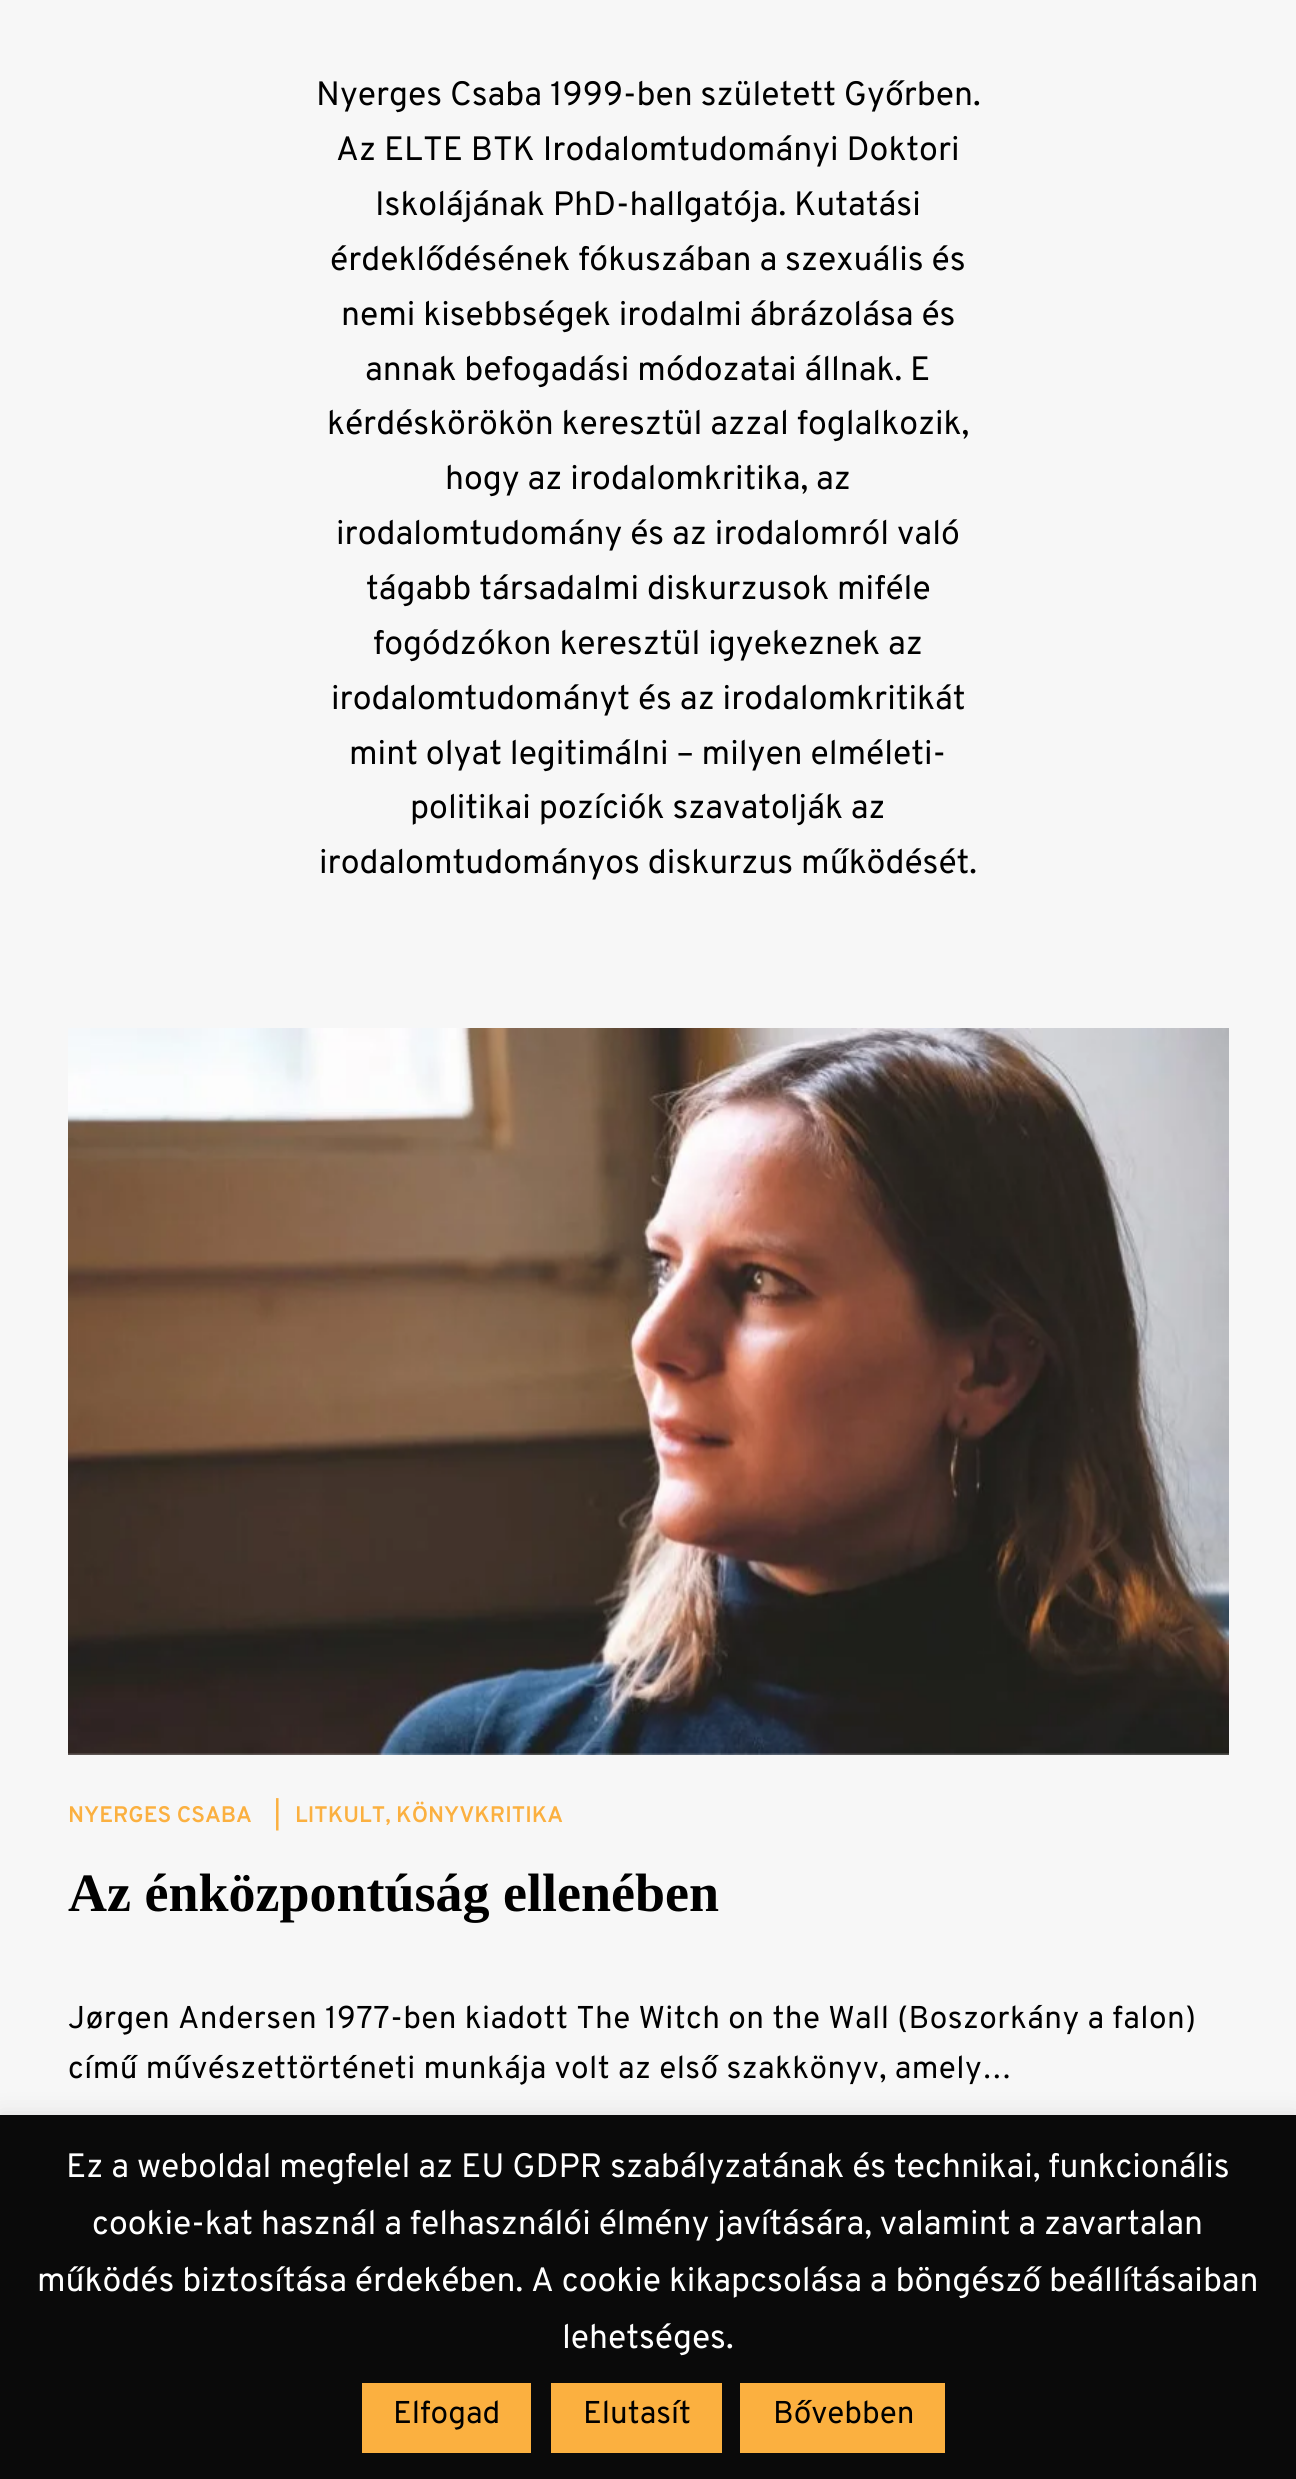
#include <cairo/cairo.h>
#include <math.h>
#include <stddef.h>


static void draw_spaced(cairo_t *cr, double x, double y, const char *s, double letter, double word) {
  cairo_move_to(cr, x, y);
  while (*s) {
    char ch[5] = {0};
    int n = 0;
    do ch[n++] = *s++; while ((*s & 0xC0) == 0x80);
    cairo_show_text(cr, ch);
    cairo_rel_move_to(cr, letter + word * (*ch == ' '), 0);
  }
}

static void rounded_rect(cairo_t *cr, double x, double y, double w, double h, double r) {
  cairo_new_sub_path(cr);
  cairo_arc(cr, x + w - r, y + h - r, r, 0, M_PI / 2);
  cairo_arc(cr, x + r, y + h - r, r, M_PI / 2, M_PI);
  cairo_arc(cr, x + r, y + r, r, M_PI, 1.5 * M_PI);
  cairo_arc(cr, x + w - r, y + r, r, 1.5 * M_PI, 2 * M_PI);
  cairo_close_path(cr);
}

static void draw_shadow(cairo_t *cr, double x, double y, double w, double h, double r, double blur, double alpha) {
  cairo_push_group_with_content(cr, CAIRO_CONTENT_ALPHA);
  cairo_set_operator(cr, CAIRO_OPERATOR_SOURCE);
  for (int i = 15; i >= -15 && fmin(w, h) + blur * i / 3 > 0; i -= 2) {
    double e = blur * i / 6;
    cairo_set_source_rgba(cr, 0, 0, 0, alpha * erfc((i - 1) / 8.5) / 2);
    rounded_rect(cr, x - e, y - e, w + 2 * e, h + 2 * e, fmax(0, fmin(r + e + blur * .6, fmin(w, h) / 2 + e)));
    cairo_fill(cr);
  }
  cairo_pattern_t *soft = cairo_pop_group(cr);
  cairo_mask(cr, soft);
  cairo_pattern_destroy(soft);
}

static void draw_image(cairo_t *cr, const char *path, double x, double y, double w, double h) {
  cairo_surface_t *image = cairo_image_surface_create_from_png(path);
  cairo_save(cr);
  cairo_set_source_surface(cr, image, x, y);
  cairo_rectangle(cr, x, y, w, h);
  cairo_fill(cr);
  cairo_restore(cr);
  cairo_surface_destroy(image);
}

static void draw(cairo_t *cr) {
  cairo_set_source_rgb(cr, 247 / 255.0, 247 / 255.0, 247 / 255.0);
  cairo_paint(cr);
  draw_image(cr, "images/1.png", 68, 1028, 1161, 727);
  cairo_set_source_rgb(cr, 172 / 255.0, 171 / 255.0, 171 / 255.0);
  draw_shadow(cr, 0, 2113, 1296, 364, 0, 11, 0.3);
  cairo_set_source_rgb(cr, 10 / 255.0, 10 / 255.0, 10 / 255.0);
  cairo_rectangle(cr, 0, 2115, 1296, 364);
  cairo_fill(cr);
  cairo_set_source_rgb(cr, 251 / 255.0, 176 / 255.0, 64 / 255.0);
  cairo_rectangle(cr, 362, 2383, 169, 70);
  cairo_fill(cr);
  cairo_rectangle(cr, 551, 2383, 171, 70);
  cairo_fill(cr);
  cairo_rectangle(cr, 740, 2383, 205, 70);
  cairo_fill(cr);
  cairo_select_font_face(cr, "Overpass", CAIRO_FONT_SLANT_NORMAL, CAIRO_FONT_WEIGHT_NORMAL);
  cairo_set_font_size(cr, 33.75);
  cairo_set_source_rgb(cr, 0, 0, 0);
  cairo_move_to(cr, 316, 105);
  cairo_show_text(cr, "Nyerges Csaba 1999-ben született Győrben.");
  cairo_move_to(cr, 336, 160);
  cairo_show_text(cr, "Az ELTE BTK Irodalomtudományi Doktori");
  cairo_move_to(cr, 375, 215);
  cairo_show_text(cr, "Iskolájának PhD-hallgatója. Kutatási");
  cairo_move_to(cr, 330, 270);
  cairo_show_text(cr, "érdeklődésének fókuszában a szexuális és");
  cairo_move_to(cr, 341, 325);
  cairo_show_text(cr, "nemi kisebbségek irodalmi ábrázolása és");
  cairo_move_to(cr, 365, 380);
  cairo_show_text(cr, "annak befogadási módozatai állnak. E");
  cairo_move_to(cr, 327, 434);
  cairo_show_text(cr, "kérdéskörökön keresztül azzal foglalkozik,");
  cairo_move_to(cr, 445, 489);
  cairo_show_text(cr, "hogy az irodalomkritika, az");
  cairo_move_to(cr, 336, 544);
  cairo_show_text(cr, "irodalomtudomány és az irodalomról való");
  cairo_move_to(cr, 366, 599);
  cairo_show_text(cr, "tágabb társadalmi diskurzusok miféle");
  cairo_move_to(cr, 373, 654);
  cairo_show_text(cr, "fogódzókon keresztül igyekeznek az");
  cairo_move_to(cr, 331, 709);
  cairo_show_text(cr, "irodalomtudományt és az irodalomkritikát");
  cairo_move_to(cr, 349, 764);
  cairo_show_text(cr, "mint olyat legitimálni – milyen elméleti-");
  cairo_move_to(cr, 410, 818);
  cairo_show_text(cr, "politikai pozíciók szavatolják az");
  cairo_move_to(cr, 319, 873);
  cairo_show_text(cr, "irodalomtudományos diskurzus működését.");
  cairo_select_font_face(cr, "Overpass SemiBold", CAIRO_FONT_SLANT_NORMAL, CAIRO_FONT_WEIGHT_NORMAL);
  cairo_set_font_size(cr, 22.5);
  cairo_set_source_rgb(cr, 251 / 255.0, 176 / 255.0, 64 / 255.0);
  cairo_move_to(cr, 68, 1822);
  cairo_show_text(cr, "NYERGES CSABA");
  cairo_move_to(cr, 274, 1822);
  cairo_show_text(cr, "|");
  cairo_move_to(cr, 295, 1822);
  cairo_show_text(cr, "LITKULT, KÖNYVKRITIKA");
  cairo_select_font_face(cr, "Liberation Serif", CAIRO_FONT_SLANT_NORMAL, CAIRO_FONT_WEIGHT_BOLD);
  cairo_set_font_size(cr, 54);
  cairo_set_source_rgb(cr, 0, 0, 0);
  cairo_move_to(cr, 68, 1911);
  cairo_show_text(cr, "Az énközpontúság ellenében");
  cairo_select_font_face(cr, "Overpass", CAIRO_FONT_SLANT_NORMAL, CAIRO_FONT_WEIGHT_NORMAL);
  cairo_set_font_size(cr, 31.5);
  draw_spaced(cr, 68, 2028, "Jørgen Andersen 1977-ben kiadott The Witch on the Wall (Boszorkány a falon)", 0.45, 0);
  draw_spaced(cr, 68, 2078, "című művészettörténeti munkája volt az első szakkönyv, amely…", 0.45, 0);
  cairo_set_font_size(cr, 33.75);
  cairo_set_source_rgb(cr, 1, 1, 1);
  cairo_move_to(cr, 66, 2177);
  cairo_show_text(cr, "Ez a weboldal megfelel az EU GDPR szabályzatának és technikai, funkcionális");
  cairo_move_to(cr, 92, 2234);
  cairo_show_text(cr, "cookie-kat használ a felhasználói élmény javítására, valamint a zavartalan");
  cairo_move_to(cr, 37, 2291);
  cairo_show_text(cr, "működés biztosítása érdekében. A cookie kikapcsolása a böngésző beállításaiban");
  cairo_move_to(cr, 562, 2348);
  cairo_show_text(cr, "lehetséges.");
  cairo_set_font_size(cr, 31.5);
  cairo_set_source_rgb(cr, 0, 0, 0);
  cairo_move_to(cr, 393, 2423);
  cairo_show_text(cr, "Elfogad");
  cairo_move_to(cr, 583, 2423);
  cairo_show_text(cr, "Elutasít");
  cairo_move_to(cr, 773, 2423);
  cairo_show_text(cr, "Bővebben");
}

int main(void) {
  cairo_surface_t *surface = cairo_image_surface_create(CAIRO_FORMAT_RGB24, 1296, 2479);
  cairo_t *cr = cairo_create(surface);
  cairo_font_options_t *options = cairo_font_options_create();
  cairo_font_options_set_hint_metrics(options, CAIRO_HINT_METRICS_OFF);
  cairo_font_options_set_hint_style(options, CAIRO_HINT_STYLE_NONE);
  cairo_set_font_options(cr, options);
  cairo_set_miter_limit(cr, 4);
  draw(cr);
  cairo_surface_write_to_png(surface, "out.png");
  cairo_font_options_destroy(options);
  cairo_destroy(cr);
  cairo_surface_destroy(surface);
  return 0;
}
